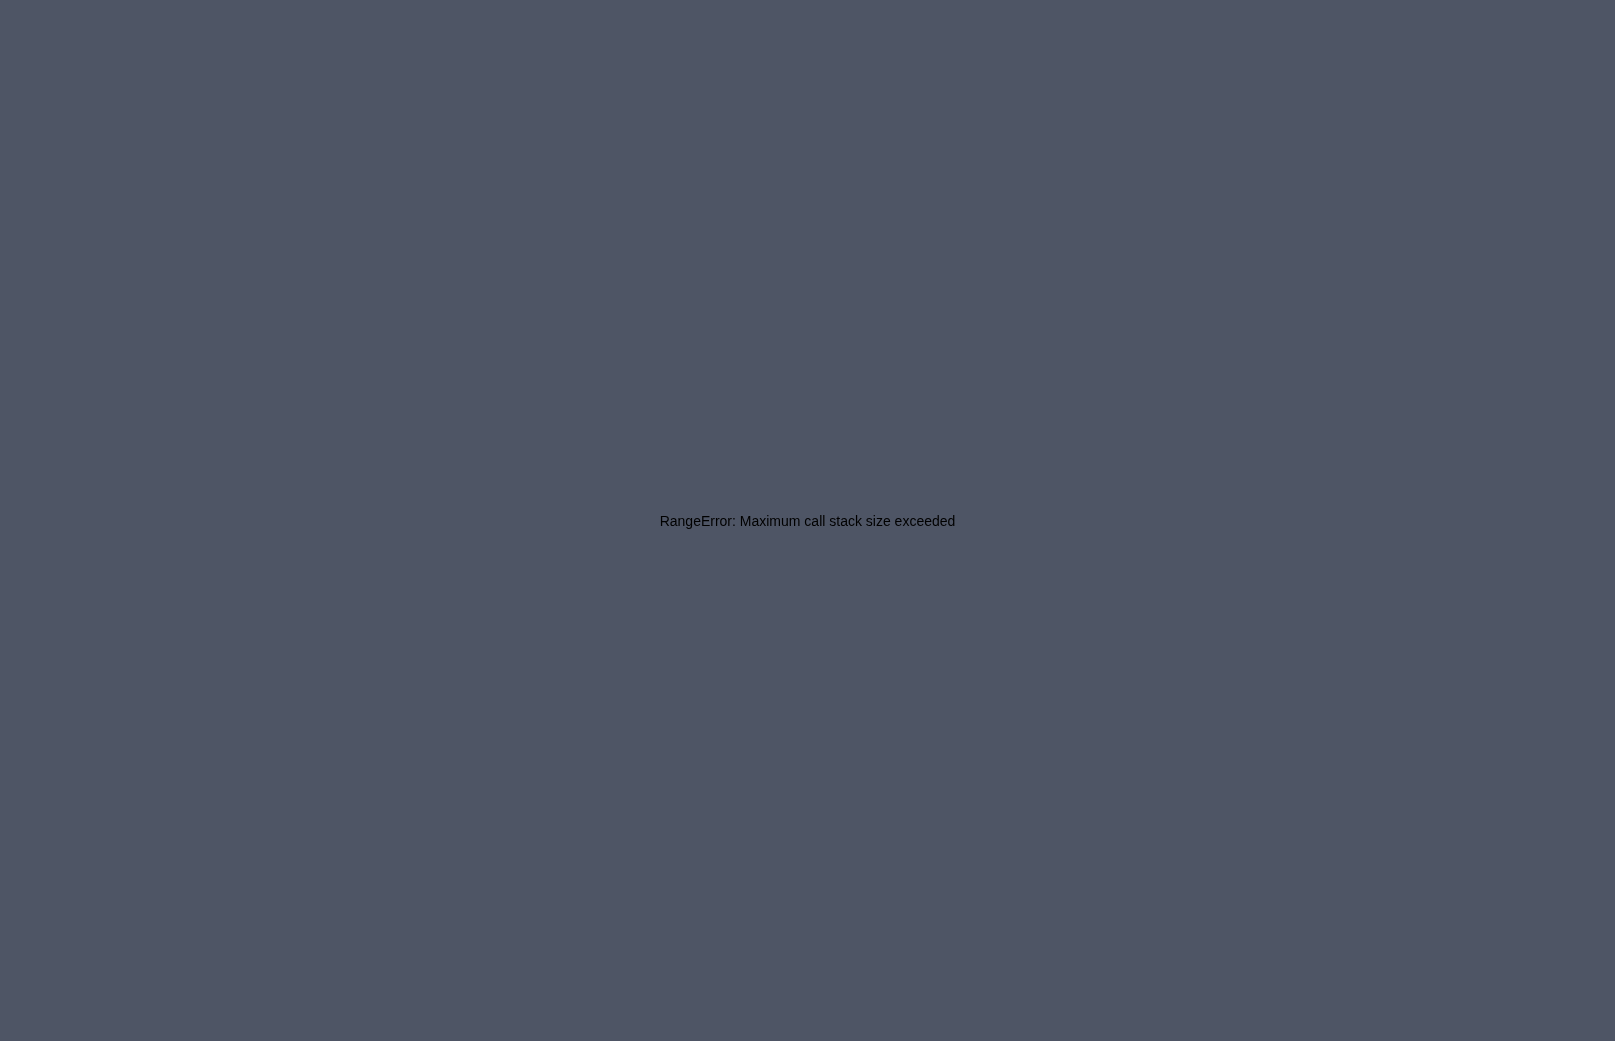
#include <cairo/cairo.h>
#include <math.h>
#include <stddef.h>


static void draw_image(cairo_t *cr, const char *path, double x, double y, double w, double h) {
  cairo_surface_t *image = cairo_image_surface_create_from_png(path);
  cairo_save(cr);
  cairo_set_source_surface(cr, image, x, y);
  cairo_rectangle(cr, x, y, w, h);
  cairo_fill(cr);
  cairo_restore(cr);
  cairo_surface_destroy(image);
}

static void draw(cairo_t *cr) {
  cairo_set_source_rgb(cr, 78 / 255.0, 85 / 255.0, 101 / 255.0);
  cairo_paint(cr);
  draw_image(cr, "images/1.png", 660, 515, 295, 14);
}

int main(void) {
  cairo_surface_t *surface = cairo_image_surface_create(CAIRO_FORMAT_RGB24, 1615, 1041);
  cairo_t *cr = cairo_create(surface);
  cairo_font_options_t *options = cairo_font_options_create();
  cairo_font_options_set_hint_metrics(options, CAIRO_HINT_METRICS_OFF);
  cairo_font_options_set_hint_style(options, CAIRO_HINT_STYLE_NONE);
  cairo_set_font_options(cr, options);
  cairo_set_miter_limit(cr, 4);
  draw(cr);
  cairo_surface_write_to_png(surface, "out.png");
  cairo_font_options_destroy(options);
  cairo_destroy(cr);
  cairo_surface_destroy(surface);
  return 0;
}
